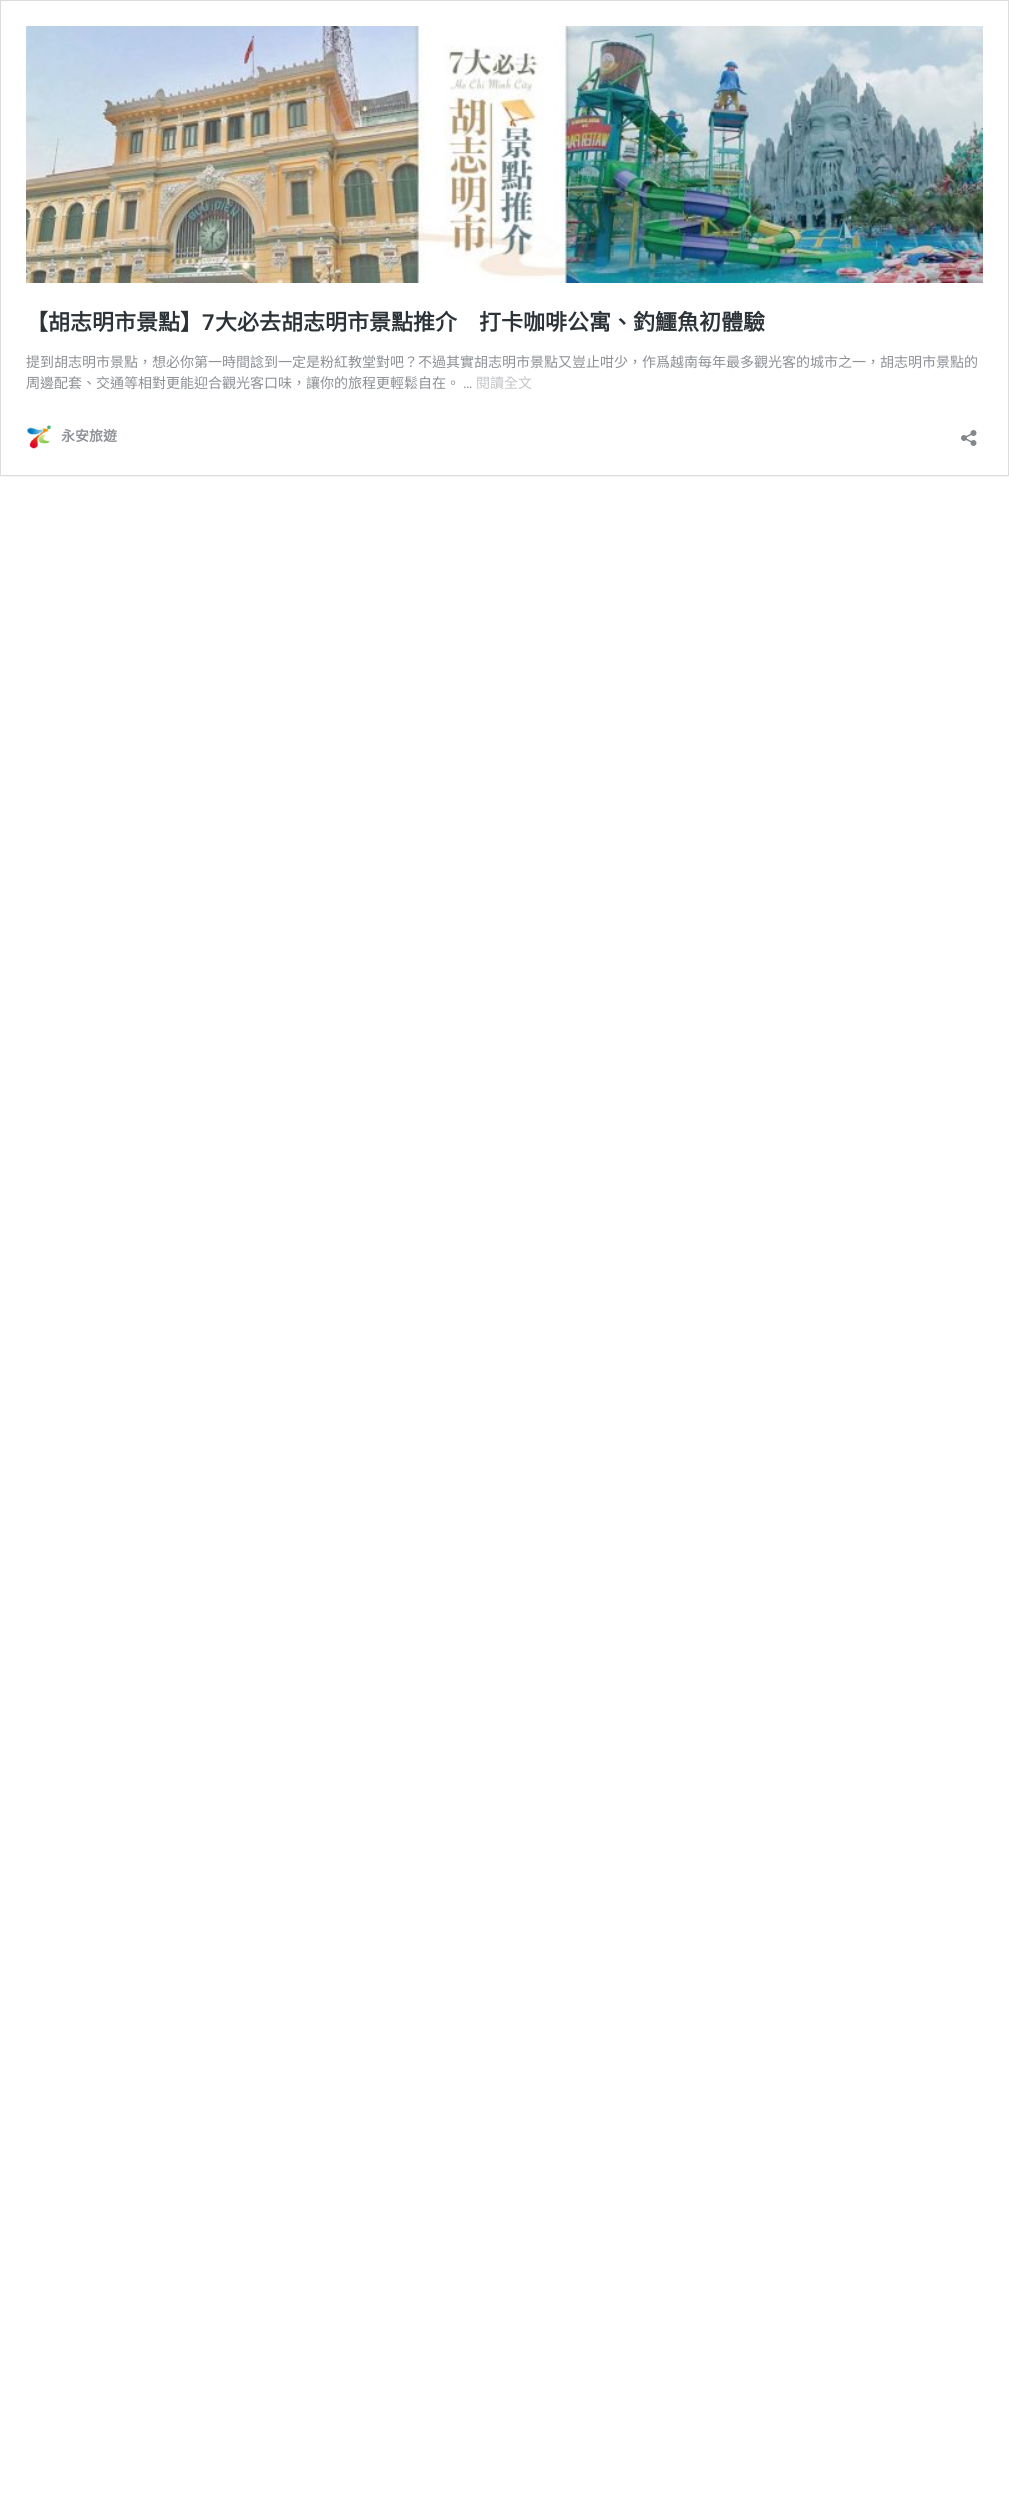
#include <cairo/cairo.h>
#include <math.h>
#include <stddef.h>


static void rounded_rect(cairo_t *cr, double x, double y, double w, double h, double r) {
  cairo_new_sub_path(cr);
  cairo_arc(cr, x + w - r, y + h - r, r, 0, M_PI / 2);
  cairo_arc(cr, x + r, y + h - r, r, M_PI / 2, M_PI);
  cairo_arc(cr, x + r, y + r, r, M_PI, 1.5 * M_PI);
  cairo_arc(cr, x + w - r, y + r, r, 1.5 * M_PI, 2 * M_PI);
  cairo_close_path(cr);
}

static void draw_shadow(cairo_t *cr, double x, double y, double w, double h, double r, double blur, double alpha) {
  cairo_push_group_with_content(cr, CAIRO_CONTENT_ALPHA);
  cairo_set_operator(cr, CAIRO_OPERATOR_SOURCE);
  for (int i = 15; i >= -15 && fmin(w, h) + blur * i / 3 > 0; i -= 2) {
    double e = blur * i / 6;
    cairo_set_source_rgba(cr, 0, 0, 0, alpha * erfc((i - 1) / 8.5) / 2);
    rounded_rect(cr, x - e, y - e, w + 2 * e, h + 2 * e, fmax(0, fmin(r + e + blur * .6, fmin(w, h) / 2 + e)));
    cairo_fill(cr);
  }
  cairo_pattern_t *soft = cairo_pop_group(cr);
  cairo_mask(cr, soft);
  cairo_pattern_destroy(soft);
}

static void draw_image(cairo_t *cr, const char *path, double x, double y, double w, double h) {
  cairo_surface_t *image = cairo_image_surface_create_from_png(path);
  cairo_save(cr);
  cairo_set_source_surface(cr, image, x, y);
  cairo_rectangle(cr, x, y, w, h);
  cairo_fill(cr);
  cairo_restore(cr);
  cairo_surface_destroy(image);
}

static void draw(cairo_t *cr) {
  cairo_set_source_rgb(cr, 1, 1, 1);
  cairo_paint(cr);
  cairo_save(cr);
  cairo_rectangle(cr, 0, 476, 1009, 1);
  cairo_clip(cr);
  cairo_set_source_rgb(cr, 0, 0, 0);
  draw_shadow(cr, 0, 1, 1009, 476, 0, 0.5, 0.05);
  cairo_restore(cr);
  cairo_rectangle(cr, 0.5, 0.5, 1008, 475);
  cairo_set_source_rgb(cr, 220 / 255.0, 220 / 255.0, 222 / 255.0);
  cairo_set_line_width(cr, 1);
  cairo_stroke(cr);
  draw_image(cr, "images/1.png", 26, 26, 957, 257);
  draw_image(cr, "images/2.png", 26, 425, 25, 24);
  draw_image(cr, "images/3.png", 961, 430, 16, 16);
  cairo_select_font_face(cr, "Noto Sans CJK HK", CAIRO_FONT_SLANT_NORMAL, CAIRO_FONT_WEIGHT_BOLD);
  cairo_set_font_size(cr, 22);
  cairo_set_source_rgb(cr, 44 / 255.0, 51 / 255.0, 56 / 255.0);
  cairo_move_to(cr, 26, 330);
  cairo_show_text(cr, "【胡志明市景點】");
  cairo_select_font_face(cr, "Roboto SemiBold", CAIRO_FONT_SLANT_NORMAL, CAIRO_FONT_WEIGHT_NORMAL);
  cairo_move_to(cr, 202, 330);
  cairo_show_text(cr, "7");
  cairo_select_font_face(cr, "Noto Sans CJK HK", CAIRO_FONT_SLANT_NORMAL, CAIRO_FONT_WEIGHT_BOLD);
  cairo_move_to(cr, 215, 330);
  cairo_show_text(cr, "大必去胡志明市景點推介　打卡咖啡公寓、釣鱷魚初體驗");
  cairo_select_font_face(cr, "Noto Sans CJK HK", CAIRO_FONT_SLANT_NORMAL, CAIRO_FONT_WEIGHT_NORMAL);
  cairo_set_font_size(cr, 14);
  cairo_set_source_rgb(cr, 140 / 255.0, 143 / 255.0, 148 / 255.0);
  cairo_move_to(cr, 26, 367);
  cairo_show_text(cr, "提到胡志明市景點，想必你第一時間諗到一定是粉紅教堂對吧？不過其實胡志明市景點又豈止咁少，作爲越南每年最多觀光客的城市之一，胡志明市景點的");
  cairo_move_to(cr, 26, 388);
  cairo_show_text(cr, "周邊配套、交通等相對更能迎合觀光客口味，讓你的旅程更輕鬆自在。");
  cairo_select_font_face(cr, "Roboto", CAIRO_FONT_SLANT_NORMAL, CAIRO_FONT_WEIGHT_NORMAL);
  cairo_move_to(cr, 463, 388);
  cairo_show_text(cr, "…");
  cairo_select_font_face(cr, "Noto Sans CJK HK", CAIRO_FONT_SLANT_NORMAL, CAIRO_FONT_WEIGHT_NORMAL);
  cairo_set_source_rgb(cr, 195 / 255.0, 196 / 255.0, 199 / 255.0);
  cairo_move_to(cr, 476, 388);
  cairo_show_text(cr, "閱讀全文");
  cairo_select_font_face(cr, "Noto Sans CJK HK", CAIRO_FONT_SLANT_NORMAL, CAIRO_FONT_WEIGHT_BOLD);
  cairo_set_source_rgb(cr, 140 / 255.0, 143 / 255.0, 148 / 255.0);
  cairo_move_to(cr, 61, 441);
  cairo_show_text(cr, "永安旅遊");
}

int main(void) {
  cairo_surface_t *surface = cairo_image_surface_create(CAIRO_FORMAT_RGB24, 1009, 2506);
  cairo_t *cr = cairo_create(surface);
  cairo_font_options_t *options = cairo_font_options_create();
  cairo_font_options_set_hint_metrics(options, CAIRO_HINT_METRICS_OFF);
  cairo_font_options_set_hint_style(options, CAIRO_HINT_STYLE_NONE);
  cairo_set_font_options(cr, options);
  cairo_set_miter_limit(cr, 4);
  draw(cr);
  cairo_surface_write_to_png(surface, "out.png");
  cairo_font_options_destroy(options);
  cairo_destroy(cr);
  cairo_surface_destroy(surface);
  return 0;
}
